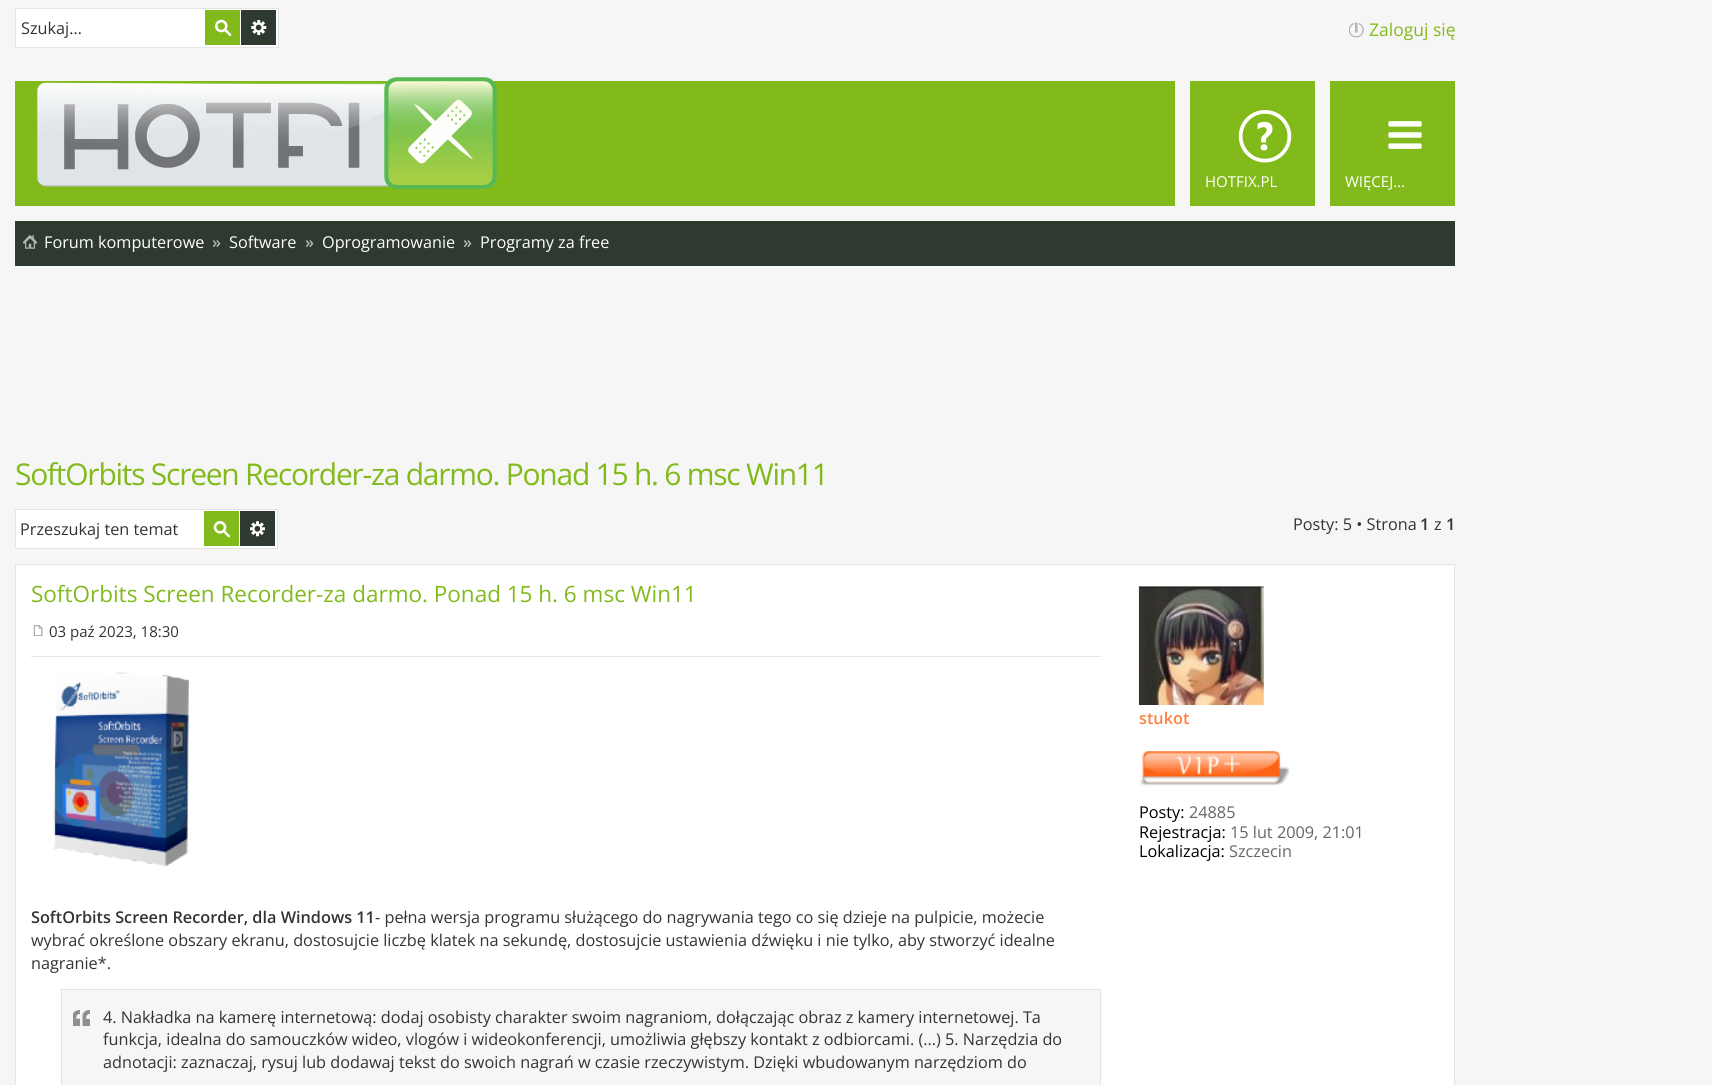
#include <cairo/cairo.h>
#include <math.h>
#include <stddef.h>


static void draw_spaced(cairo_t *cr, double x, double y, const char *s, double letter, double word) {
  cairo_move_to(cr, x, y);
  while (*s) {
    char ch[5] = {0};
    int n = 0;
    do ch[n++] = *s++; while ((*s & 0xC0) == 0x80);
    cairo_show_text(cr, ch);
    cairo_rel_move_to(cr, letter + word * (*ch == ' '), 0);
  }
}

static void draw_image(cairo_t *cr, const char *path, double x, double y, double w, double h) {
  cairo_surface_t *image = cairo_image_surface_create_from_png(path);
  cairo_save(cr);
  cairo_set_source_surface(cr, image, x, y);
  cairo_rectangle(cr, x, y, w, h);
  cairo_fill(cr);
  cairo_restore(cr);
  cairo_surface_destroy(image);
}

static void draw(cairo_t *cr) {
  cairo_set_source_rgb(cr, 246 / 255.0, 246 / 255.0, 246 / 255.0);
  cairo_paint(cr);
  cairo_set_source_rgb(cr, 1, 1, 1);
  cairo_rectangle(cr, 15.5, 8.5, 263, 39);
  cairo_fill_preserve(cr);
  cairo_set_source_rgb(cr, 228 / 255.0, 228 / 255.0, 228 / 255.0);
  cairo_set_line_width(cr, 1);
  cairo_stroke(cr);
  cairo_set_source_rgb(cr, 130 / 255.0, 186 / 255.0, 27 / 255.0);
  cairo_rectangle(cr, 205, 10, 35, 35);
  cairo_fill(cr);
  draw_image(cr, "images/1.png", 215, 19, 17, 18);
  cairo_set_source_rgb(cr, 46 / 255.0, 57 / 255.0, 47 / 255.0);
  cairo_rectangle(cr, 241, 10, 35, 35);
  cairo_fill(cr);
  draw_image(cr, "images/2.png", 251, 20, 16, 15);
  draw_image(cr, "images/3.png", 1349, 22, 15, 16);
  cairo_set_source_rgb(cr, 130 / 255.0, 186 / 255.0, 27 / 255.0);
  cairo_rectangle(cr, 15, 81, 1440, 125);
  cairo_fill(cr);
  draw_image(cr, "images/4.png", 37, 77, 460, 112);
  cairo_set_source_rgb(cr, 246 / 255.0, 246 / 255.0, 246 / 255.0);
  cairo_rectangle(cr, 1175, 81, 15, 125);
  cairo_fill(cr);
  draw_image(cr, "images/5.png", 1238, 110, 54, 53);
  cairo_rectangle(cr, 1315, 81, 15, 125);
  cairo_fill(cr);
  draw_image(cr, "images/6.png", 1388, 121, 34, 28);
  cairo_set_source_rgb(cr, 46 / 255.0, 57 / 255.0, 47 / 255.0);
  cairo_rectangle(cr, 15, 221, 1440, 45);
  cairo_fill(cr);
  draw_image(cr, "images/7.png", 23, 235, 15, 14);
  cairo_set_source_rgb(cr, 1, 1, 1);
  cairo_rectangle(cr, 15.5, 509.5, 262, 39);
  cairo_fill_preserve(cr);
  cairo_set_source_rgb(cr, 228 / 255.0, 228 / 255.0, 228 / 255.0);
  cairo_stroke(cr);
  cairo_set_source_rgb(cr, 130 / 255.0, 186 / 255.0, 27 / 255.0);
  cairo_rectangle(cr, 204, 511, 35, 35);
  cairo_fill(cr);
  draw_image(cr, "images/8.png", 213, 521, 17, 17);
  cairo_set_source_rgb(cr, 46 / 255.0, 57 / 255.0, 47 / 255.0);
  cairo_rectangle(cr, 240, 511, 35, 35);
  cairo_fill(cr);
  draw_image(cr, "images/9.png", 250, 521, 15, 16);
  cairo_set_source_rgb(cr, 1, 1, 1);
  cairo_rectangle(cr, 15.5, 564.5, 1439, 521);
  cairo_fill_preserve(cr);
  cairo_set_source_rgb(cr, 228 / 255.0, 228 / 255.0, 228 / 255.0);
  cairo_stroke(cr);
  draw_image(cr, "images/10.png", 33, 625, 10, 11);
  cairo_rectangle(cr, 31, 656, 1070, 1);
  cairo_fill(cr);
  draw_image(cr, "images/11.png", 53, 672, 136, 195);
  cairo_set_source_rgb(cr, 246 / 255.0, 246 / 255.0, 246 / 255.0);
  cairo_rectangle(cr, 62, 990, 1038, 95);
  cairo_fill(cr);
  draw_image(cr, "images/12.png", 73, 1010, 17, 16);
  cairo_rectangle(cr, 61.5, 989.5, 1039, 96);
  cairo_set_source_rgb(cr, 228 / 255.0, 228 / 255.0, 228 / 255.0);
  cairo_stroke(cr);
  draw_image(cr, "images/13.png", 1138, 586, 126, 119);
  draw_image(cr, "images/14.png", 1140, 751, 149, 35);
  cairo_select_font_face(cr, "Open Sans", CAIRO_FONT_SLANT_NORMAL, CAIRO_FONT_WEIGHT_NORMAL);
  cairo_set_font_size(cr, 16.25);
  cairo_set_source_rgb(cr, 51 / 255.0, 51 / 255.0, 51 / 255.0);
  cairo_move_to(cr, 21, 34);
  cairo_show_text(cr, "Szukaj…");
  cairo_set_font_size(cr, 17.5);
  cairo_set_source_rgb(cr, 130 / 255.0, 186 / 255.0, 27 / 255.0);
  cairo_move_to(cr, 1369, 36);
  cairo_show_text(cr, "Zaloguj się");
  cairo_set_font_size(cr, 15);
  cairo_set_source_rgb(cr, 1, 1, 1);
  cairo_move_to(cr, 1205, 187);
  cairo_show_text(cr, "HOTFIX.PL");
  cairo_move_to(cr, 1345, 187);
  cairo_show_text(cr, "WIĘCEJ…");
  cairo_set_font_size(cr, 16.25);
  cairo_move_to(cr, 44, 248);
  cairo_show_text(cr, "Forum komputerowe");
  cairo_select_font_face(cr, "Open Sans SemiBold", CAIRO_FONT_SLANT_NORMAL, CAIRO_FONT_WEIGHT_NORMAL);
  cairo_set_source_rgb(cr, 180 / 255.0, 180 / 255.0, 180 / 255.0);
  cairo_move_to(cr, 212, 248);
  cairo_show_text(cr, "»");
  cairo_select_font_face(cr, "Open Sans", CAIRO_FONT_SLANT_NORMAL, CAIRO_FONT_WEIGHT_NORMAL);
  cairo_set_source_rgb(cr, 1, 1, 1);
  cairo_move_to(cr, 229, 248);
  cairo_show_text(cr, "Software");
  cairo_select_font_face(cr, "Open Sans SemiBold", CAIRO_FONT_SLANT_NORMAL, CAIRO_FONT_WEIGHT_NORMAL);
  cairo_set_source_rgb(cr, 180 / 255.0, 180 / 255.0, 180 / 255.0);
  cairo_move_to(cr, 305, 248);
  cairo_show_text(cr, "»");
  cairo_select_font_face(cr, "Open Sans", CAIRO_FONT_SLANT_NORMAL, CAIRO_FONT_WEIGHT_NORMAL);
  cairo_set_source_rgb(cr, 1, 1, 1);
  cairo_move_to(cr, 322, 248);
  cairo_show_text(cr, "Oprogramowanie");
  cairo_select_font_face(cr, "Open Sans SemiBold", CAIRO_FONT_SLANT_NORMAL, CAIRO_FONT_WEIGHT_NORMAL);
  cairo_set_source_rgb(cr, 180 / 255.0, 180 / 255.0, 180 / 255.0);
  cairo_move_to(cr, 463, 248);
  cairo_show_text(cr, "»");
  cairo_select_font_face(cr, "Open Sans", CAIRO_FONT_SLANT_NORMAL, CAIRO_FONT_WEIGHT_NORMAL);
  cairo_set_source_rgb(cr, 1, 1, 1);
  cairo_move_to(cr, 480, 248);
  cairo_show_text(cr, "Programy za free");
  cairo_set_font_size(cr, 30);
  cairo_set_source_rgb(cr, 130 / 255.0, 186 / 255.0, 27 / 255.0);
  draw_spaced(cr, 15, 485, "SoftOrbits Screen Recorder-za darmo. Ponad 15 h. 6 msc Win11", -1.25, 0);
  cairo_set_font_size(cr, 16.25);
  cairo_set_source_rgb(cr, 51 / 255.0, 51 / 255.0, 51 / 255.0);
  cairo_move_to(cr, 20, 535);
  cairo_show_text(cr, "Przeszukaj ten temat");
  cairo_move_to(cr, 1293, 530);
  cairo_show_text(cr, "Posty: 5 • Strona");
  cairo_select_font_face(cr, "Open Sans SemiBold", CAIRO_FONT_SLANT_NORMAL, CAIRO_FONT_WEIGHT_NORMAL);
  cairo_move_to(cr, 1420, 530);
  cairo_show_text(cr, "1");
  cairo_select_font_face(cr, "Open Sans", CAIRO_FONT_SLANT_NORMAL, CAIRO_FONT_WEIGHT_NORMAL);
  cairo_move_to(cr, 1434, 530);
  cairo_show_text(cr, "z");
  cairo_select_font_face(cr, "Open Sans SemiBold", CAIRO_FONT_SLANT_NORMAL, CAIRO_FONT_WEIGHT_NORMAL);
  cairo_move_to(cr, 1446, 530);
  cairo_show_text(cr, "1");
  cairo_select_font_face(cr, "Open Sans", CAIRO_FONT_SLANT_NORMAL, CAIRO_FONT_WEIGHT_NORMAL);
  cairo_set_font_size(cr, 22.5);
  cairo_set_source_rgb(cr, 130 / 255.0, 186 / 255.0, 27 / 255.0);
  cairo_move_to(cr, 31, 602);
  cairo_show_text(cr, "SoftOrbits Screen Recorder-za darmo. Ponad 15 h. 6 msc Win11");
  cairo_set_font_size(cr, 15);
  cairo_set_source_rgb(cr, 51 / 255.0, 51 / 255.0, 51 / 255.0);
  cairo_move_to(cr, 49, 637);
  cairo_show_text(cr, "03 paź 2023, 18:30");
  cairo_select_font_face(cr, "Open Sans SemiBold", CAIRO_FONT_SLANT_NORMAL, CAIRO_FONT_WEIGHT_NORMAL);
  cairo_set_font_size(cr, 16.25);
  cairo_move_to(cr, 31, 923);
  cairo_show_text(cr, "SoftOrbits Screen Recorder, dla Windows 11");
  cairo_select_font_face(cr, "Open Sans", CAIRO_FONT_SLANT_NORMAL, CAIRO_FONT_WEIGHT_NORMAL);
  cairo_move_to(cr, 375, 923);
  cairo_show_text(cr, "- pełna wersja programu służącego do nagrywania tego co się dzieje na pulpicie, możecie");
  cairo_move_to(cr, 31, 946);
  cairo_show_text(cr, "wybrać określone obszary ekranu, dostosujcie liczbę klatek na sekundę, dostosujcie ustawienia dźwięku i nie tylko, aby stworzyć idealne");
  cairo_move_to(cr, 31, 969);
  cairo_show_text(cr, "nagranie*.");
  cairo_move_to(cr, 103, 1023);
  cairo_show_text(cr, "4. Nakładka na kamerę internetową: dodaj osobisty charakter swoim nagraniom, dołączając obraz z kamery internetowej. Ta");
  cairo_move_to(cr, 103, 1045);
  cairo_show_text(cr, "funkcja, idealna do samouczków wideo, vlogów i wideokonferencji, umożliwia głębszy kontakt z odbiorcami. (...) 5. Narzędzia do");
  cairo_move_to(cr, 103, 1068);
  cairo_show_text(cr, "adnotacji: zaznaczaj, rysuj lub dodawaj tekst do swoich nagrań w czasie rzeczywistym. Dzięki wbudowanym narzędziom do");
  cairo_select_font_face(cr, "Open Sans SemiBold", CAIRO_FONT_SLANT_NORMAL, CAIRO_FONT_WEIGHT_NORMAL);
  cairo_set_source_rgb(cr, 1, 128 / 255.0, 64 / 255.0);
  cairo_move_to(cr, 1139, 724);
  cairo_show_text(cr, "stukot");
  cairo_select_font_face(cr, "Open Sans", CAIRO_FONT_SLANT_NORMAL, CAIRO_FONT_WEIGHT_NORMAL);
  cairo_set_source_rgb(cr, 0, 0, 0);
  cairo_move_to(cr, 1139, 818);
  cairo_show_text(cr, "Posty:");
  cairo_set_source_rgb(cr, 102 / 255.0, 102 / 255.0, 102 / 255.0);
  cairo_move_to(cr, 1189, 818);
  cairo_show_text(cr, "24885");
  cairo_set_source_rgb(cr, 0, 0, 0);
  cairo_move_to(cr, 1139, 838);
  cairo_show_text(cr, "Rejestracja:");
  cairo_set_source_rgb(cr, 102 / 255.0, 102 / 255.0, 102 / 255.0);
  cairo_move_to(cr, 1230, 838);
  cairo_show_text(cr, "15 lut 2009, 21:01");
  cairo_set_source_rgb(cr, 0, 0, 0);
  cairo_move_to(cr, 1139, 857);
  cairo_show_text(cr, "Lokalizacja:");
  cairo_set_source_rgb(cr, 102 / 255.0, 102 / 255.0, 102 / 255.0);
  cairo_move_to(cr, 1229, 857);
  cairo_show_text(cr, "Szczecin");
}

int main(void) {
  cairo_surface_t *surface = cairo_image_surface_create(CAIRO_FORMAT_RGB24, 1712, 1085);
  cairo_t *cr = cairo_create(surface);
  cairo_font_options_t *options = cairo_font_options_create();
  cairo_font_options_set_hint_metrics(options, CAIRO_HINT_METRICS_OFF);
  cairo_font_options_set_hint_style(options, CAIRO_HINT_STYLE_NONE);
  cairo_set_font_options(cr, options);
  cairo_set_miter_limit(cr, 4);
  draw(cr);
  cairo_surface_write_to_png(surface, "out.png");
  cairo_font_options_destroy(options);
  cairo_destroy(cr);
  cairo_surface_destroy(surface);
  return 0;
}
